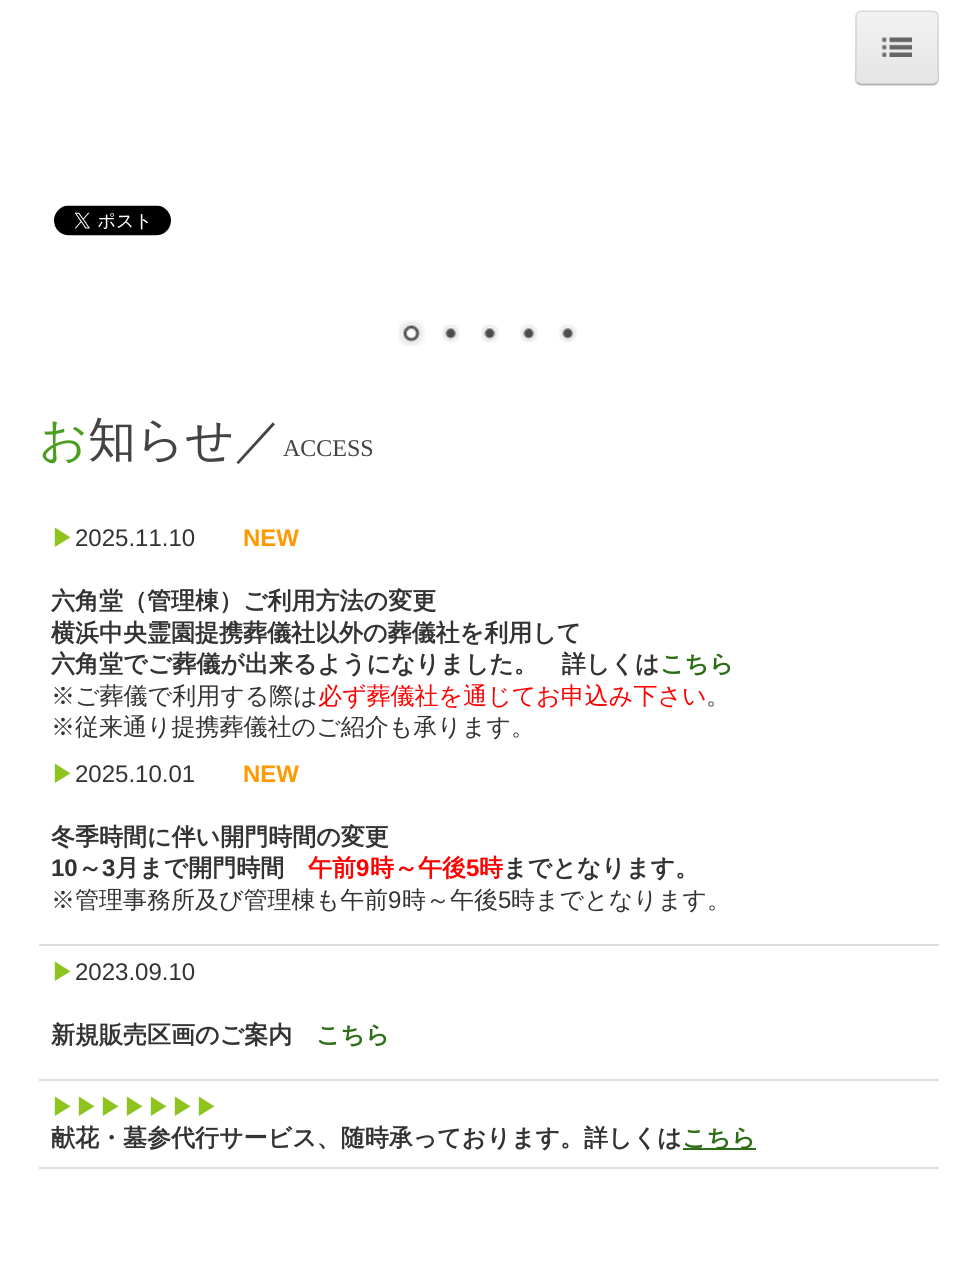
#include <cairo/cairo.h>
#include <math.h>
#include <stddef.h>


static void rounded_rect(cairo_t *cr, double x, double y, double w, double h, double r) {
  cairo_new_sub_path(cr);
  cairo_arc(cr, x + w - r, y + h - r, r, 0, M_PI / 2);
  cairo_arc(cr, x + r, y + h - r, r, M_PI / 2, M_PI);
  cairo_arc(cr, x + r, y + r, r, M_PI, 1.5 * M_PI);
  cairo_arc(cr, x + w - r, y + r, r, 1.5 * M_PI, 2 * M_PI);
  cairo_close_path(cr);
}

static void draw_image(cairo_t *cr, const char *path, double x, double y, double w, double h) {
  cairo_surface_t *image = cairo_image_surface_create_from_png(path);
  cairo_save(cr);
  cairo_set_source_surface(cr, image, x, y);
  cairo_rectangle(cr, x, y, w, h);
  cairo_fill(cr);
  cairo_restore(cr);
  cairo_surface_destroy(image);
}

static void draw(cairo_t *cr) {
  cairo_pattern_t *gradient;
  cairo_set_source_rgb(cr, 1, 1, 1);
  cairo_paint(cr);
  cairo_set_source_rgb(cr, 237 / 255.0, 237 / 255.0, 237 / 255.0);
  rounded_rect(cr, 855, 11, 84, 75, 6);
  cairo_fill(cr);
  cairo_save(cr);
  rounded_rect(cr, 855, 11, 84, 75, 6);
  cairo_clip(cr);
  gradient = cairo_pattern_create_linear(897, 12, 897, 84);
  cairo_pattern_add_color_stop_rgba(gradient, 0, 242 / 255.0, 242 / 255.0, 242 / 255.0, 1);
  cairo_pattern_add_color_stop_rgba(gradient, 1, 229 / 255.0, 229 / 255.0, 229 / 255.0, 1);
  cairo_set_source(cr, gradient);
  cairo_pattern_destroy(gradient);
  cairo_rectangle(cr, 855, 12, 84, 72);
  cairo_fill(cr);
  cairo_restore(cr);
  cairo_new_path(cr);
  cairo_move_to(cr, 936.5, 83);
  cairo_line_to(cr, 933.5, 84.5);
  cairo_line_to(cr, 860.5, 84.5);
  cairo_line_to(cr, 857.5, 83);
  cairo_set_source_rgba(cr, 0, 0, 0, 0.25);
  cairo_set_line_width(cr, 1.5);
  cairo_stroke(cr);
  cairo_new_path(cr);
  cairo_move_to(cr, 857.5, 83);
  cairo_curve_to(cr, 854, 80, 856, 71, 856, 69);
  cairo_line_to(cr, 856, 27);
  cairo_curve_to(cr, 856, 9.5, 855, 11, 873, 11);
  cairo_line_to(cr, 921, 11);
  cairo_curve_to(cr, 939, 11, 938, 9.5, 938, 27);
  cairo_line_to(cr, 938, 69);
  cairo_curve_to(cr, 938, 71, 940, 80, 936.5, 83);
  cairo_set_source_rgba(cr, 0, 0, 0, 0.1);
  cairo_stroke(cr);
  draw_image(cr, "images/1.png", 881, 37, 31, 20);
  draw_image(cr, "images/2.png", 54, 205, 117, 31);
  draw_image(cr, "images/3.png", 398, 320, 27, 26);
  draw_image(cr, "images/4.png", 442, 324, 18, 19);
  draw_image(cr, "images/5.png", 481, 324, 18, 19);
  draw_image(cr, "images/5.png", 520, 324, 18, 19);
  draw_image(cr, "images/4.png", 559, 324, 18, 19);
  cairo_set_source_rgb(cr, 221 / 255.0, 221 / 255.0, 221 / 255.0);
  cairo_rectangle(cr, 39, 944, 900, 2);
  cairo_fill(cr);
  cairo_rectangle(cr, 39, 1079, 900, 2);
  cairo_fill(cr);
  cairo_rectangle(cr, 39, 1167, 900, 2);
  cairo_fill(cr);
  cairo_set_source_rgb(cr, 46 / 255.0, 109 / 255.0, 23 / 255.0);
  cairo_rectangle(cr, 683, 1148, 73, 2);
  cairo_fill(cr);
  cairo_select_font_face(cr, "WenQuanYi Zen Hei Medium", CAIRO_FONT_SLANT_NORMAL, CAIRO_FONT_WEIGHT_NORMAL);
  cairo_set_font_size(cr, 48);
  cairo_set_source_rgb(cr, 75 / 255.0, 158 / 255.0, 34 / 255.0);
  cairo_move_to(cr, 39, 456);
  cairo_show_text(cr, "お");
  cairo_set_source_rgb(cr, 67 / 255.0, 67 / 255.0, 67 / 255.0);
  cairo_move_to(cr, 88, 456);
  cairo_show_text(cr, "知らせ／");
  cairo_select_font_face(cr, "Liberation Serif", CAIRO_FONT_SLANT_NORMAL, CAIRO_FONT_WEIGHT_NORMAL);
  cairo_set_font_size(cr, 24);
  cairo_move_to(cr, 283, 456);
  cairo_show_text(cr, "ACCESS");
  cairo_select_font_face(cr, "WenQuanYi Zen Hei Medium", CAIRO_FONT_SLANT_NORMAL, CAIRO_FONT_WEIGHT_NORMAL);
  cairo_set_source_rgb(cr, 143 / 255.0, 195 / 255.0, 31 / 255.0);
  cairo_move_to(cr, 51, 546);
  cairo_show_text(cr, "▶");
  cairo_select_font_face(cr, "Liberation Sans", CAIRO_FONT_SLANT_NORMAL, CAIRO_FONT_WEIGHT_NORMAL);
  cairo_set_source_rgb(cr, 51 / 255.0, 51 / 255.0, 51 / 255.0);
  cairo_move_to(cr, 75, 546);
  cairo_show_text(cr, "2025.11.10");
  cairo_select_font_face(cr, "Liberation Sans", CAIRO_FONT_SLANT_NORMAL, CAIRO_FONT_WEIGHT_BOLD);
  cairo_set_source_rgb(cr, 1, 153 / 255.0, 0);
  cairo_move_to(cr, 243, 546);
  cairo_show_text(cr, "NEW");
  cairo_select_font_face(cr, "WenQuanYi Zen Hei", CAIRO_FONT_SLANT_NORMAL, CAIRO_FONT_WEIGHT_BOLD);
  cairo_set_source_rgb(cr, 51 / 255.0, 51 / 255.0, 51 / 255.0);
  cairo_move_to(cr, 51, 609);
  cairo_show_text(cr, "六角堂（管理棟）ご利用方法の変更");
  cairo_move_to(cr, 51, 641);
  cairo_show_text(cr, "横浜中央霊園提携葬儀社以外の葬儀社を利用して");
  cairo_move_to(cr, 51, 672);
  cairo_show_text(cr, "六角堂でご葬儀が出来るようになりました。　詳しくは");
  cairo_set_source_rgb(cr, 46 / 255.0, 109 / 255.0, 23 / 255.0);
  cairo_move_to(cr, 660, 672);
  cairo_show_text(cr, "こちら");
  cairo_select_font_face(cr, "WenQuanYi Zen Hei Medium", CAIRO_FONT_SLANT_NORMAL, CAIRO_FONT_WEIGHT_NORMAL);
  cairo_set_source_rgb(cr, 51 / 255.0, 51 / 255.0, 51 / 255.0);
  cairo_move_to(cr, 51, 704);
  cairo_show_text(cr, "※ご葬儀で利用する際は");
  cairo_set_source_rgb(cr, 254 / 255.0, 0, 0);
  cairo_move_to(cr, 318, 704);
  cairo_show_text(cr, "必ず葬儀社を通じてお申込み下さい");
  cairo_set_source_rgb(cr, 51 / 255.0, 51 / 255.0, 51 / 255.0);
  cairo_move_to(cr, 706, 704);
  cairo_show_text(cr, "。");
  cairo_move_to(cr, 51, 735);
  cairo_show_text(cr, "※従来通り提携葬儀社のご紹介も承ります。");
  cairo_set_source_rgb(cr, 143 / 255.0, 195 / 255.0, 31 / 255.0);
  cairo_move_to(cr, 51, 782);
  cairo_show_text(cr, "▶");
  cairo_select_font_face(cr, "Liberation Sans", CAIRO_FONT_SLANT_NORMAL, CAIRO_FONT_WEIGHT_NORMAL);
  cairo_set_source_rgb(cr, 51 / 255.0, 51 / 255.0, 51 / 255.0);
  cairo_move_to(cr, 75, 782);
  cairo_show_text(cr, "2025.10.01");
  cairo_select_font_face(cr, "Liberation Sans", CAIRO_FONT_SLANT_NORMAL, CAIRO_FONT_WEIGHT_BOLD);
  cairo_set_source_rgb(cr, 1, 153 / 255.0, 0);
  cairo_move_to(cr, 243, 782);
  cairo_show_text(cr, "NEW");
  cairo_select_font_face(cr, "WenQuanYi Zen Hei", CAIRO_FONT_SLANT_NORMAL, CAIRO_FONT_WEIGHT_BOLD);
  cairo_set_source_rgb(cr, 51 / 255.0, 51 / 255.0, 51 / 255.0);
  cairo_move_to(cr, 51, 845);
  cairo_show_text(cr, "冬季時間に伴い開門時間の変更");
  cairo_select_font_face(cr, "Liberation Sans", CAIRO_FONT_SLANT_NORMAL, CAIRO_FONT_WEIGHT_BOLD);
  cairo_move_to(cr, 51, 876);
  cairo_show_text(cr, "10");
  cairo_select_font_face(cr, "WenQuanYi Zen Hei", CAIRO_FONT_SLANT_NORMAL, CAIRO_FONT_WEIGHT_BOLD);
  cairo_move_to(cr, 78, 876);
  cairo_show_text(cr, "～");
  cairo_select_font_face(cr, "Liberation Sans", CAIRO_FONT_SLANT_NORMAL, CAIRO_FONT_WEIGHT_BOLD);
  cairo_move_to(cr, 102, 876);
  cairo_show_text(cr, "3");
  cairo_select_font_face(cr, "WenQuanYi Zen Hei", CAIRO_FONT_SLANT_NORMAL, CAIRO_FONT_WEIGHT_BOLD);
  cairo_move_to(cr, 115, 876);
  cairo_show_text(cr, "月まで開門時間");
  cairo_set_source_rgb(cr, 254 / 255.0, 0, 0);
  cairo_move_to(cr, 308, 876);
  cairo_show_text(cr, "午前");
  cairo_select_font_face(cr, "Liberation Sans", CAIRO_FONT_SLANT_NORMAL, CAIRO_FONT_WEIGHT_BOLD);
  cairo_move_to(cr, 356, 876);
  cairo_show_text(cr, "9");
  cairo_select_font_face(cr, "WenQuanYi Zen Hei", CAIRO_FONT_SLANT_NORMAL, CAIRO_FONT_WEIGHT_BOLD);
  cairo_move_to(cr, 370, 876);
  cairo_show_text(cr, "時～午後");
  cairo_select_font_face(cr, "Liberation Sans", CAIRO_FONT_SLANT_NORMAL, CAIRO_FONT_WEIGHT_BOLD);
  cairo_move_to(cr, 466, 876);
  cairo_show_text(cr, "5");
  cairo_select_font_face(cr, "WenQuanYi Zen Hei", CAIRO_FONT_SLANT_NORMAL, CAIRO_FONT_WEIGHT_BOLD);
  cairo_move_to(cr, 479, 876);
  cairo_show_text(cr, "時");
  cairo_set_source_rgb(cr, 51 / 255.0, 51 / 255.0, 51 / 255.0);
  cairo_move_to(cr, 503, 876);
  cairo_show_text(cr, "までとなります。");
  cairo_select_font_face(cr, "WenQuanYi Zen Hei Medium", CAIRO_FONT_SLANT_NORMAL, CAIRO_FONT_WEIGHT_NORMAL);
  cairo_move_to(cr, 51, 908);
  cairo_show_text(cr, "※管理事務所及び管理棟も午前");
  cairo_select_font_face(cr, "Liberation Sans", CAIRO_FONT_SLANT_NORMAL, CAIRO_FONT_WEIGHT_NORMAL);
  cairo_move_to(cr, 388, 908);
  cairo_show_text(cr, "9");
  cairo_select_font_face(cr, "WenQuanYi Zen Hei Medium", CAIRO_FONT_SLANT_NORMAL, CAIRO_FONT_WEIGHT_NORMAL);
  cairo_move_to(cr, 402, 908);
  cairo_show_text(cr, "時～午後");
  cairo_select_font_face(cr, "Liberation Sans", CAIRO_FONT_SLANT_NORMAL, CAIRO_FONT_WEIGHT_NORMAL);
  cairo_move_to(cr, 498, 908);
  cairo_show_text(cr, "5");
  cairo_select_font_face(cr, "WenQuanYi Zen Hei Medium", CAIRO_FONT_SLANT_NORMAL, CAIRO_FONT_WEIGHT_NORMAL);
  cairo_move_to(cr, 511, 908);
  cairo_show_text(cr, "時までとなります。");
  cairo_set_source_rgb(cr, 143 / 255.0, 195 / 255.0, 31 / 255.0);
  cairo_move_to(cr, 51, 980);
  cairo_show_text(cr, "▶");
  cairo_select_font_face(cr, "Liberation Sans", CAIRO_FONT_SLANT_NORMAL, CAIRO_FONT_WEIGHT_NORMAL);
  cairo_set_source_rgb(cr, 51 / 255.0, 51 / 255.0, 51 / 255.0);
  cairo_move_to(cr, 75, 980);
  cairo_show_text(cr, "2023.09.10");
  cairo_select_font_face(cr, "WenQuanYi Zen Hei", CAIRO_FONT_SLANT_NORMAL, CAIRO_FONT_WEIGHT_BOLD);
  cairo_move_to(cr, 51, 1043);
  cairo_show_text(cr, "新規販売区画のご案内");
  cairo_set_source_rgb(cr, 46 / 255.0, 109 / 255.0, 23 / 255.0);
  cairo_move_to(cr, 316, 1043);
  cairo_show_text(cr, "こちら");
  cairo_select_font_face(cr, "WenQuanYi Zen Hei Medium", CAIRO_FONT_SLANT_NORMAL, CAIRO_FONT_WEIGHT_NORMAL);
  cairo_set_source_rgb(cr, 143 / 255.0, 195 / 255.0, 31 / 255.0);
  cairo_move_to(cr, 51, 1115);
  cairo_show_text(cr, "▶▶▶▶▶▶▶");
  cairo_select_font_face(cr, "WenQuanYi Zen Hei", CAIRO_FONT_SLANT_NORMAL, CAIRO_FONT_WEIGHT_BOLD);
  cairo_set_source_rgb(cr, 51 / 255.0, 51 / 255.0, 51 / 255.0);
  cairo_move_to(cr, 51, 1146);
  cairo_show_text(cr, "献花・墓参代行サービス、随時承っております。詳しくは");
  cairo_set_source_rgb(cr, 46 / 255.0, 109 / 255.0, 23 / 255.0);
  cairo_move_to(cr, 682, 1146);
  cairo_show_text(cr, "こちら");
}

int main(void) {
  cairo_surface_t *surface = cairo_image_surface_create(CAIRO_FORMAT_RGB24, 978, 1267);
  cairo_t *cr = cairo_create(surface);
  cairo_font_options_t *options = cairo_font_options_create();
  cairo_font_options_set_hint_metrics(options, CAIRO_HINT_METRICS_OFF);
  cairo_font_options_set_hint_style(options, CAIRO_HINT_STYLE_NONE);
  cairo_set_font_options(cr, options);
  cairo_set_miter_limit(cr, 4);
  draw(cr);
  cairo_surface_write_to_png(surface, "out.png");
  cairo_font_options_destroy(options);
  cairo_destroy(cr);
  cairo_surface_destroy(surface);
  return 0;
}
